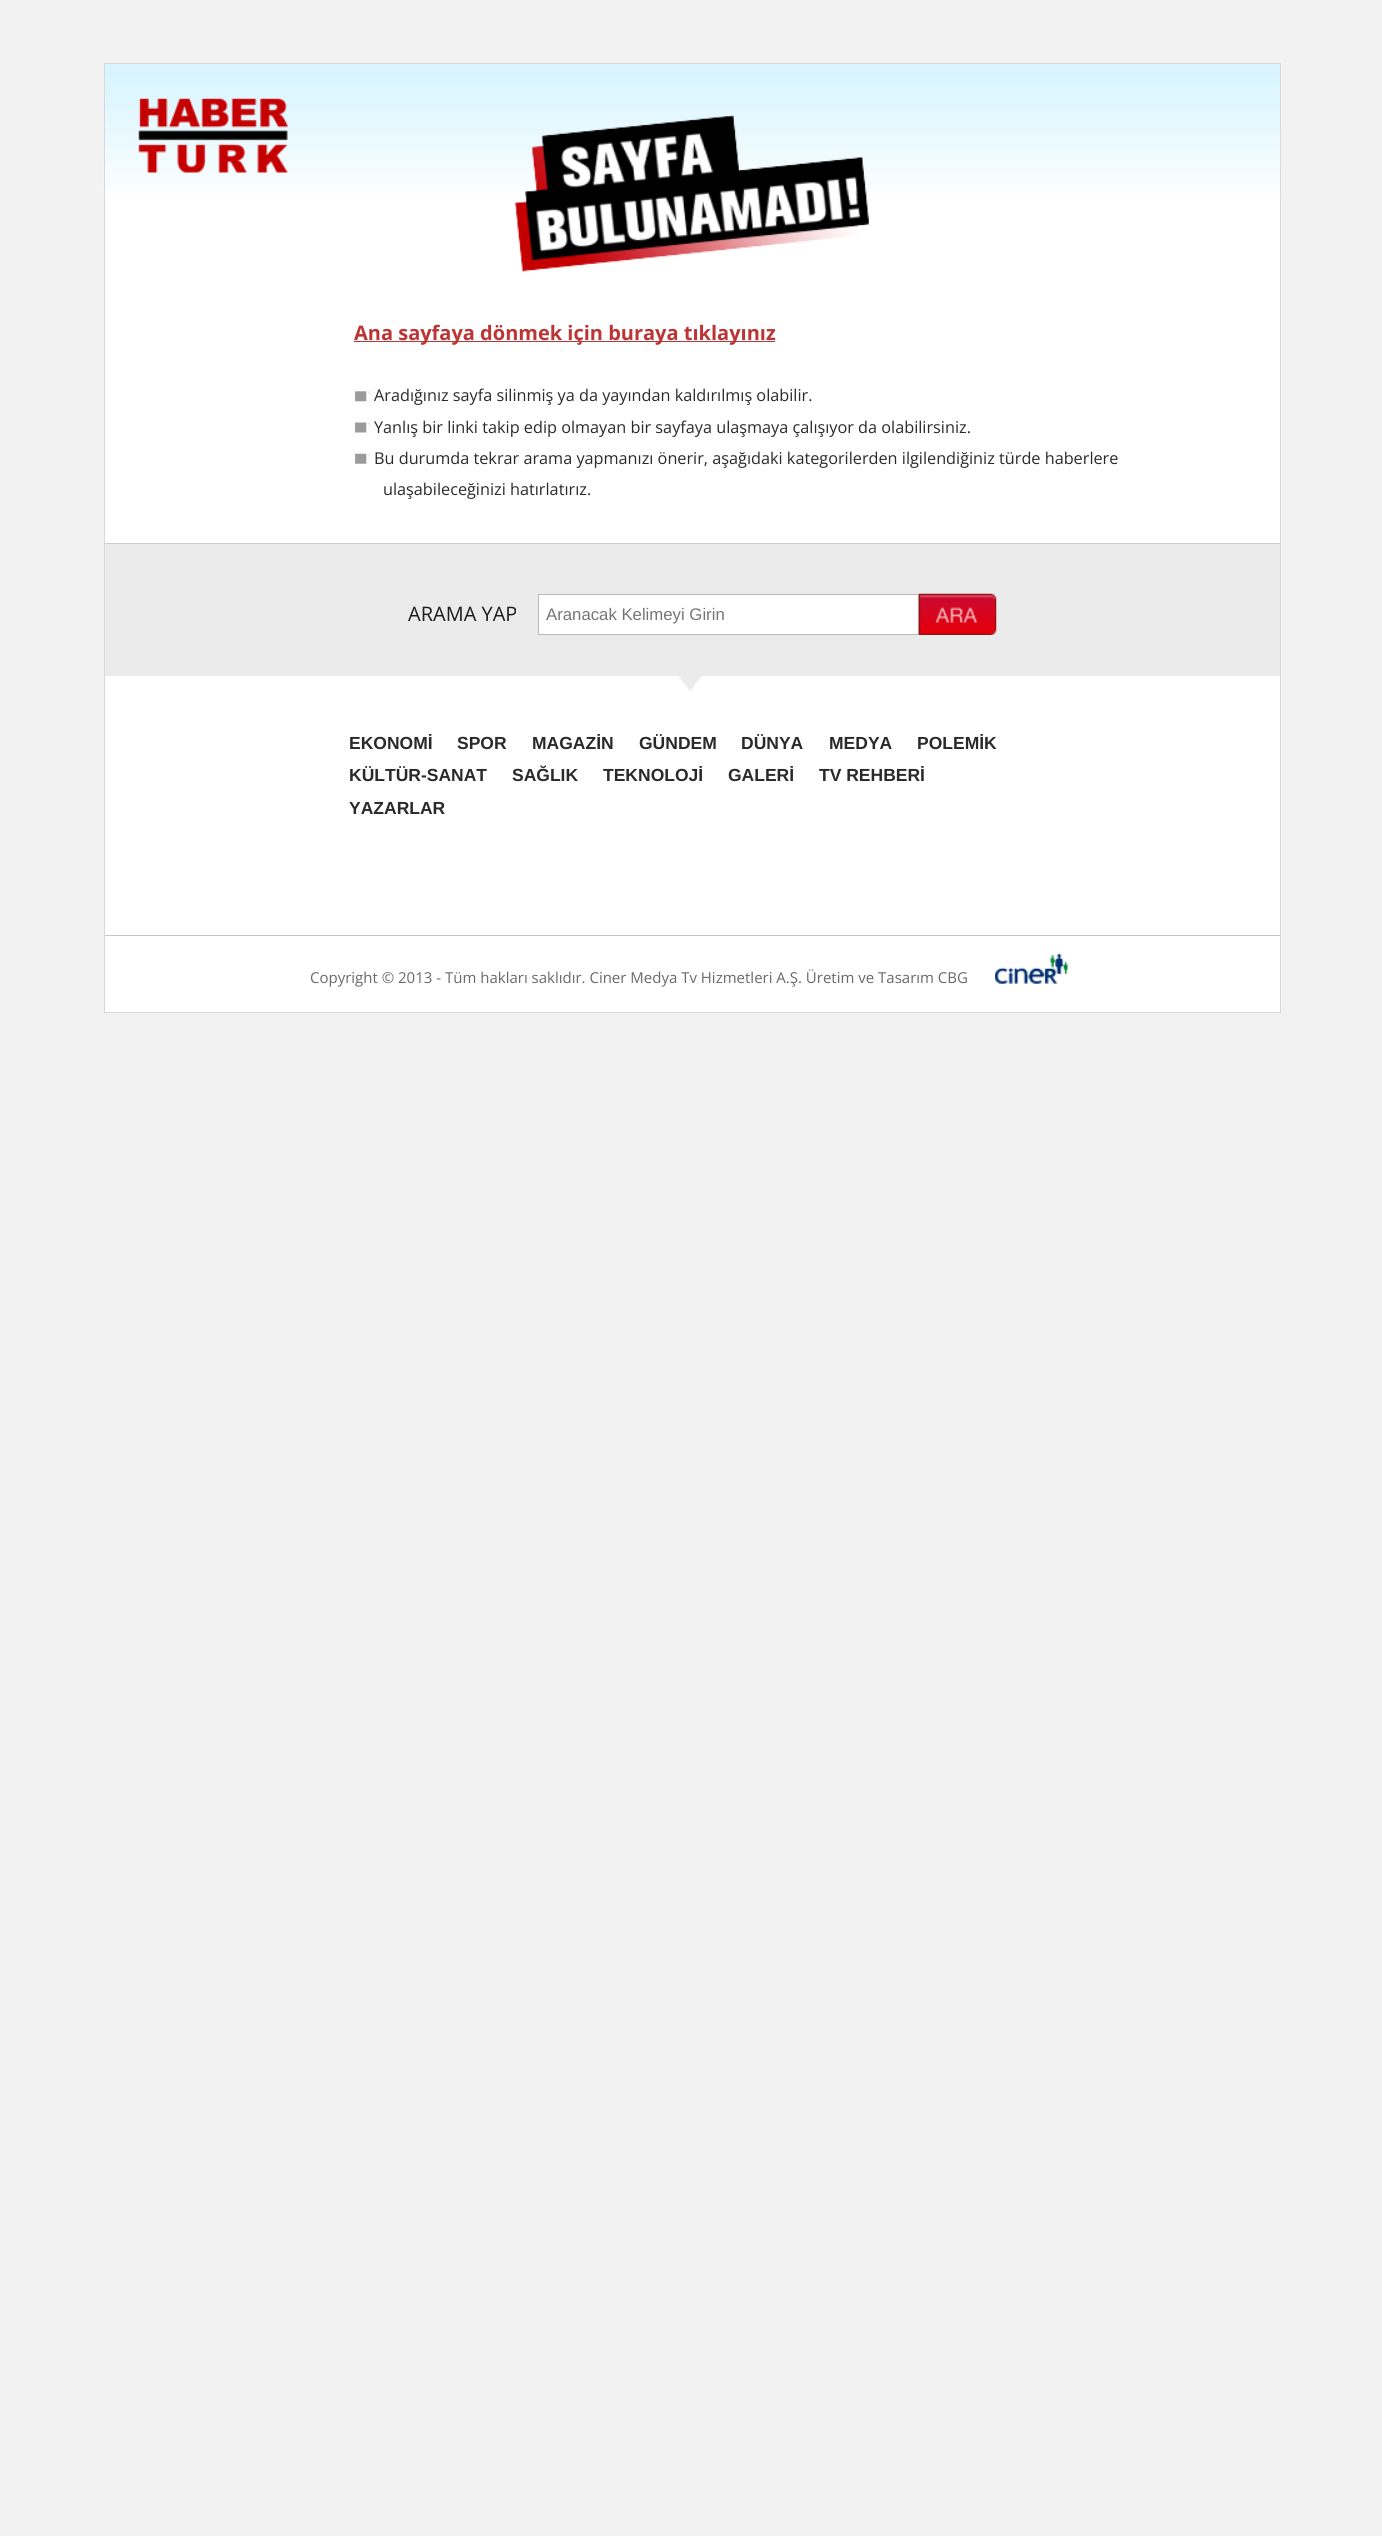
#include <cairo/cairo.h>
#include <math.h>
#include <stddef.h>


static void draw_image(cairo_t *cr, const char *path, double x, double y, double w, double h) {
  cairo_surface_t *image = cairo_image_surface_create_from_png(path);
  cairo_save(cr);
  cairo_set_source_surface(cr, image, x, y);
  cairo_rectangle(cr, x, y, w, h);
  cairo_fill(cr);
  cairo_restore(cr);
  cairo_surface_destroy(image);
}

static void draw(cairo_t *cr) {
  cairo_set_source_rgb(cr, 242 / 255.0, 242 / 255.0, 242 / 255.0);
  cairo_paint(cr);
  cairo_set_source_rgb(cr, 1, 1, 1);
  cairo_rectangle(cr, 105, 194, 1175, 818);
  cairo_fill(cr);
  draw_image(cr, "images/1.png", 103, 63, 1179, 131);
  cairo_rectangle(cr, 104.5, 63.5, 1176, 949);
  cairo_set_source_rgb(cr, 217 / 255.0, 217 / 255.0, 217 / 255.0);
  cairo_set_line_width(cr, 1);
  cairo_stroke(cr);
  draw_image(cr, "images/2.png", 138, 98, 150, 75);
  draw_image(cr, "images/3.png", 514, 115, 355, 157);
  cairo_set_source_rgb(cr, 188 / 255.0, 53 / 255.0, 52 / 255.0);
  cairo_rectangle(cr, 354, 341, 421, 1);
  cairo_fill(cr);
  draw_image(cr, "images/4.png", 354, 391, 16, 11);
  draw_image(cr, "images/5.png", 354, 422, 16, 11);
  draw_image(cr, "images/6.png", 354, 453, 16, 11);
  cairo_set_source_rgb(cr, 235 / 255.0, 235 / 255.0, 235 / 255.0);
  cairo_rectangle(cr, 105, 544, 1175, 132);
  cairo_fill(cr);
  cairo_set_source_rgb(cr, 205 / 255.0, 205 / 255.0, 205 / 255.0);
  cairo_rectangle(cr, 105, 543, 1175, 1);
  cairo_fill(cr);
  cairo_set_source_rgb(cr, 1, 1, 1);
  cairo_rectangle(cr, 538.5, 594.5, 380, 40);
  cairo_fill_preserve(cr);
  cairo_set_source_rgb(cr, 187 / 255.0, 187 / 255.0, 187 / 255.0);
  cairo_stroke(cr);
  draw_image(cr, "images/7.png", 918, 593, 79, 42);
  draw_image(cr, "images/8.png", 678, 676, 24, 15);
  cairo_set_source_rgb(cr, 198 / 255.0, 198 / 255.0, 198 / 255.0);
  cairo_rectangle(cr, 105, 935, 1175, 1);
  cairo_fill(cr);
  draw_image(cr, "images/9.png", 994, 953, 74, 31);
  cairo_select_font_face(cr, "Open Sans", CAIRO_FONT_SLANT_NORMAL, CAIRO_FONT_WEIGHT_BOLD);
  cairo_set_font_size(cr, 20);
  cairo_set_source_rgb(cr, 188 / 255.0, 53 / 255.0, 52 / 255.0);
  cairo_move_to(cr, 354, 340);
  cairo_show_text(cr, "Ana sayfaya dönmek için buraya tıklayınız");
  cairo_select_font_face(cr, "Open Sans", CAIRO_FONT_SLANT_NORMAL, CAIRO_FONT_WEIGHT_NORMAL);
  cairo_set_font_size(cr, 16.25);
  cairo_set_source_rgb(cr, 42 / 255.0, 42 / 255.0, 42 / 255.0);
  cairo_move_to(cr, 374, 401);
  cairo_show_text(cr, "Aradığınız sayfa silinmiş ya da yayından kaldırılmış olabilir.");
  cairo_move_to(cr, 374, 433);
  cairo_show_text(cr, "Yanlış bir linki takip edip olmayan bir sayfaya ulaşmaya çalışıyor da olabilirsiniz.");
  cairo_move_to(cr, 374, 464);
  cairo_show_text(cr, "Bu durumda tekrar arama yapmanızı önerir, aşağıdaki kategorilerden ilgilendiğiniz türde haberlere");
  cairo_move_to(cr, 383, 495);
  cairo_show_text(cr, "ulaşabileceğinizi hatırlatırız.");
  cairo_set_font_size(cr, 20);
  cairo_set_source_rgb(cr, 30 / 255.0, 30 / 255.0, 30 / 255.0);
  cairo_move_to(cr, 408, 621);
  cairo_show_text(cr, "ARAMA YAP");
  cairo_select_font_face(cr, "Liberation Sans", CAIRO_FONT_SLANT_NORMAL, CAIRO_FONT_WEIGHT_NORMAL);
  cairo_set_font_size(cr, 16.75);
  cairo_set_source_rgb(cr, 117 / 255.0, 117 / 255.0, 117 / 255.0);
  cairo_move_to(cr, 546, 620);
  cairo_show_text(cr, "Aranacak Kelimeyi Girin");
  cairo_select_font_face(cr, "Liberation Sans", CAIRO_FONT_SLANT_NORMAL, CAIRO_FONT_WEIGHT_BOLD);
  cairo_set_font_size(cr, 17.5);
  cairo_set_source_rgb(cr, 42 / 255.0, 42 / 255.0, 42 / 255.0);
  cairo_move_to(cr, 349, 749);
  cairo_show_text(cr, "EKONOMİ");
  cairo_move_to(cr, 457, 749);
  cairo_show_text(cr, "SPOR");
  cairo_move_to(cr, 532, 749);
  cairo_show_text(cr, "MAGAZİN");
  cairo_move_to(cr, 639, 749);
  cairo_show_text(cr, "GÜNDEM");
  cairo_move_to(cr, 741, 749);
  cairo_show_text(cr, "DÜNYA");
  cairo_move_to(cr, 829, 749);
  cairo_show_text(cr, "MEDYA");
  cairo_move_to(cr, 917, 749);
  cairo_show_text(cr, "POLEMİK");
  cairo_move_to(cr, 349, 781);
  cairo_show_text(cr, "KÜLTÜR-SANAT");
  cairo_move_to(cr, 512, 781);
  cairo_show_text(cr, "SAĞLIK");
  cairo_move_to(cr, 603, 781);
  cairo_show_text(cr, "TEKNOLOJİ");
  cairo_move_to(cr, 728, 781);
  cairo_show_text(cr, "GALERİ");
  cairo_move_to(cr, 819, 781);
  cairo_show_text(cr, "TV REHBERİ");
  cairo_move_to(cr, 349, 814);
  cairo_show_text(cr, "YAZARLAR");
  cairo_select_font_face(cr, "Open Sans", CAIRO_FONT_SLANT_NORMAL, CAIRO_FONT_WEIGHT_NORMAL);
  cairo_set_font_size(cr, 15);
  cairo_set_source_rgb(cr, 105 / 255.0, 105 / 255.0, 105 / 255.0);
  cairo_move_to(cr, 310, 983);
  cairo_show_text(cr, "Copyright © 2013 - Tüm hakları saklıdır. Ciner Medya Tv Hizmetleri A.Ş. Üretim ve Tasarım CBG");
}

int main(void) {
  cairo_surface_t *surface = cairo_image_surface_create(CAIRO_FORMAT_RGB24, 1382, 2536);
  cairo_t *cr = cairo_create(surface);
  cairo_font_options_t *options = cairo_font_options_create();
  cairo_font_options_set_hint_metrics(options, CAIRO_HINT_METRICS_OFF);
  cairo_font_options_set_hint_style(options, CAIRO_HINT_STYLE_NONE);
  cairo_set_font_options(cr, options);
  cairo_set_miter_limit(cr, 4);
  draw(cr);
  cairo_surface_write_to_png(surface, "out.png");
  cairo_font_options_destroy(options);
  cairo_destroy(cr);
  cairo_surface_destroy(surface);
  return 0;
}
